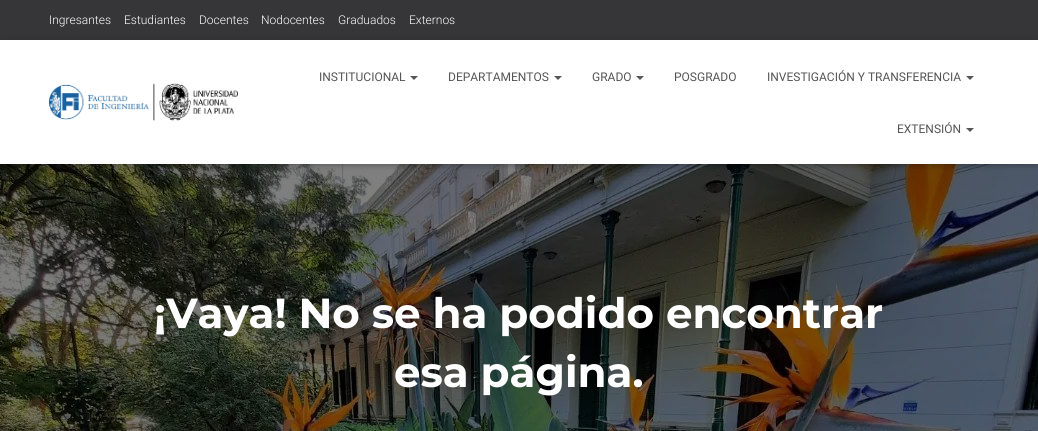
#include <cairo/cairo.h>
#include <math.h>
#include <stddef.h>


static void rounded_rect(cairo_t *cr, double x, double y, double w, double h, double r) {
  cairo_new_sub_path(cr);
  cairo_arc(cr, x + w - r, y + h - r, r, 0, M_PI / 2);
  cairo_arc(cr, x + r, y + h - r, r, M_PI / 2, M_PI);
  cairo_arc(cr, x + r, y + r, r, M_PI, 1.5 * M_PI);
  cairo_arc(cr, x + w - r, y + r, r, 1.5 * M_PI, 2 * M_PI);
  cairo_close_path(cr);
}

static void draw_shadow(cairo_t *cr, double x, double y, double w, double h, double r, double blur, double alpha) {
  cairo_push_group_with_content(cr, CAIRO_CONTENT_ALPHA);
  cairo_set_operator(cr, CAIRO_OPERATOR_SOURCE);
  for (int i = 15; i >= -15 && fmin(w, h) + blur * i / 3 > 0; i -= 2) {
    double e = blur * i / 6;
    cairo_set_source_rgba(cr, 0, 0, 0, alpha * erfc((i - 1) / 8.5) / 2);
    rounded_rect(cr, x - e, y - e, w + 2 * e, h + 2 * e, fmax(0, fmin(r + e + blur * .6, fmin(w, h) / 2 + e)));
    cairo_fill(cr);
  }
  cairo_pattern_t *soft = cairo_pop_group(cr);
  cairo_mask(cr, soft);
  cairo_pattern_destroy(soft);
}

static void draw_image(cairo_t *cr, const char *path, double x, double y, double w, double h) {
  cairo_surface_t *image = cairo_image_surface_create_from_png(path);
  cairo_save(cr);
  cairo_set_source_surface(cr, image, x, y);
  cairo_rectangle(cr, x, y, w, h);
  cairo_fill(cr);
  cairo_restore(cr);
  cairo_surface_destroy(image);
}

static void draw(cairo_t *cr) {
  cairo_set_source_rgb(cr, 1, 1, 1);
  cairo_paint(cr);
  draw_image(cr, "images/1.png", 0, 164, 1038, 267);
  cairo_set_source_rgb(cr, 54 / 255.0, 53 / 255.0, 55 / 255.0);
  cairo_rectangle(cr, 0, 0, 1038, 40);
  cairo_fill(cr);
  cairo_set_source_rgb(cr, 0, 0, 0);
  draw_shadow(cr, 2, 46, 1034, 120, 0, 2.5, 0.1);
  draw_shadow(cr, 0, 41, 1038, 124, 0, 5, 0.12);
  draw_shadow(cr, 6, 47, 1026, 112, 0, 5, 0.42);
  cairo_set_source_rgb(cr, 1, 1, 1);
  cairo_rectangle(cr, 0, 40, 1038, 124);
  cairo_fill(cr);
  draw_image(cr, "images/2.png", 49, 83, 189, 38);
  cairo_set_source_rgb(cr, 85 / 255.0, 85 / 255.0, 85 / 255.0);
  cairo_new_path(cr);
  cairo_move_to(cr, 410, 76);
  cairo_line_to(cr, 418, 76);
  cairo_line_to(cr, 414, 80);
  cairo_close_path(cr);
  cairo_fill(cr);
  cairo_new_path(cr);
  cairo_move_to(cr, 554, 76);
  cairo_line_to(cr, 562, 76);
  cairo_line_to(cr, 558, 80);
  cairo_close_path(cr);
  cairo_fill(cr);
  cairo_new_path(cr);
  cairo_move_to(cr, 636, 76);
  cairo_line_to(cr, 644, 76);
  cairo_line_to(cr, 640, 80);
  cairo_close_path(cr);
  cairo_fill(cr);
  cairo_new_path(cr);
  cairo_move_to(cr, 966, 76);
  cairo_line_to(cr, 974, 76);
  cairo_line_to(cr, 970, 80);
  cairo_close_path(cr);
  cairo_fill(cr);
  cairo_new_path(cr);
  cairo_move_to(cr, 966, 128);
  cairo_line_to(cr, 974, 128);
  cairo_line_to(cr, 970, 132);
  cairo_close_path(cr);
  cairo_fill(cr);
  cairo_select_font_face(cr, "Roboto Light", CAIRO_FONT_SLANT_NORMAL, CAIRO_FONT_WEIGHT_NORMAL);
  cairo_set_font_size(cr, 12);
  cairo_set_source_rgb(cr, 1, 1, 1);
  cairo_move_to(cr, 49, 24);
  cairo_show_text(cr, "Ingresantes");
  cairo_move_to(cr, 124, 24);
  cairo_show_text(cr, "Estudiantes");
  cairo_move_to(cr, 199, 24);
  cairo_show_text(cr, "Docentes");
  cairo_move_to(cr, 261, 24);
  cairo_show_text(cr, "Nodocentes");
  cairo_move_to(cr, 338, 24);
  cairo_show_text(cr, "Graduados");
  cairo_move_to(cr, 409, 24);
  cairo_show_text(cr, "Externos");
  cairo_select_font_face(cr, "Roboto", CAIRO_FONT_SLANT_NORMAL, CAIRO_FONT_WEIGHT_NORMAL);
  cairo_set_source_rgb(cr, 85 / 255.0, 85 / 255.0, 85 / 255.0);
  cairo_move_to(cr, 319, 81);
  cairo_show_text(cr, "INSTITUCIONAL");
  cairo_move_to(cr, 448, 81);
  cairo_show_text(cr, "DEPARTAMENTOS");
  cairo_move_to(cr, 592, 81);
  cairo_show_text(cr, "GRADO");
  cairo_move_to(cr, 674, 81);
  cairo_show_text(cr, "POSGRADO");
  cairo_move_to(cr, 767, 81);
  cairo_show_text(cr, "INVESTIGACIÓN Y TRANSFERENCIA");
  cairo_move_to(cr, 897, 133);
  cairo_show_text(cr, "EXTENSIÓN");
  cairo_select_font_face(cr, "Montserrat", CAIRO_FONT_SLANT_NORMAL, CAIRO_FONT_WEIGHT_BOLD);
  cairo_set_font_size(cr, 42);
  cairo_set_source_rgb(cr, 1, 1, 1);
  cairo_move_to(cr, 154, 328);
  cairo_show_text(cr, "¡Vaya! No se ha podido encontrar");
  cairo_move_to(cr, 394, 387);
  cairo_show_text(cr, "esa página.");
}

int main(void) {
  cairo_surface_t *surface = cairo_image_surface_create(CAIRO_FORMAT_RGB24, 1038, 431);
  cairo_t *cr = cairo_create(surface);
  cairo_font_options_t *options = cairo_font_options_create();
  cairo_font_options_set_hint_metrics(options, CAIRO_HINT_METRICS_OFF);
  cairo_font_options_set_hint_style(options, CAIRO_HINT_STYLE_NONE);
  cairo_set_font_options(cr, options);
  cairo_set_miter_limit(cr, 4);
  draw(cr);
  cairo_surface_write_to_png(surface, "out.png");
  cairo_font_options_destroy(options);
  cairo_destroy(cr);
  cairo_surface_destroy(surface);
  return 0;
}
